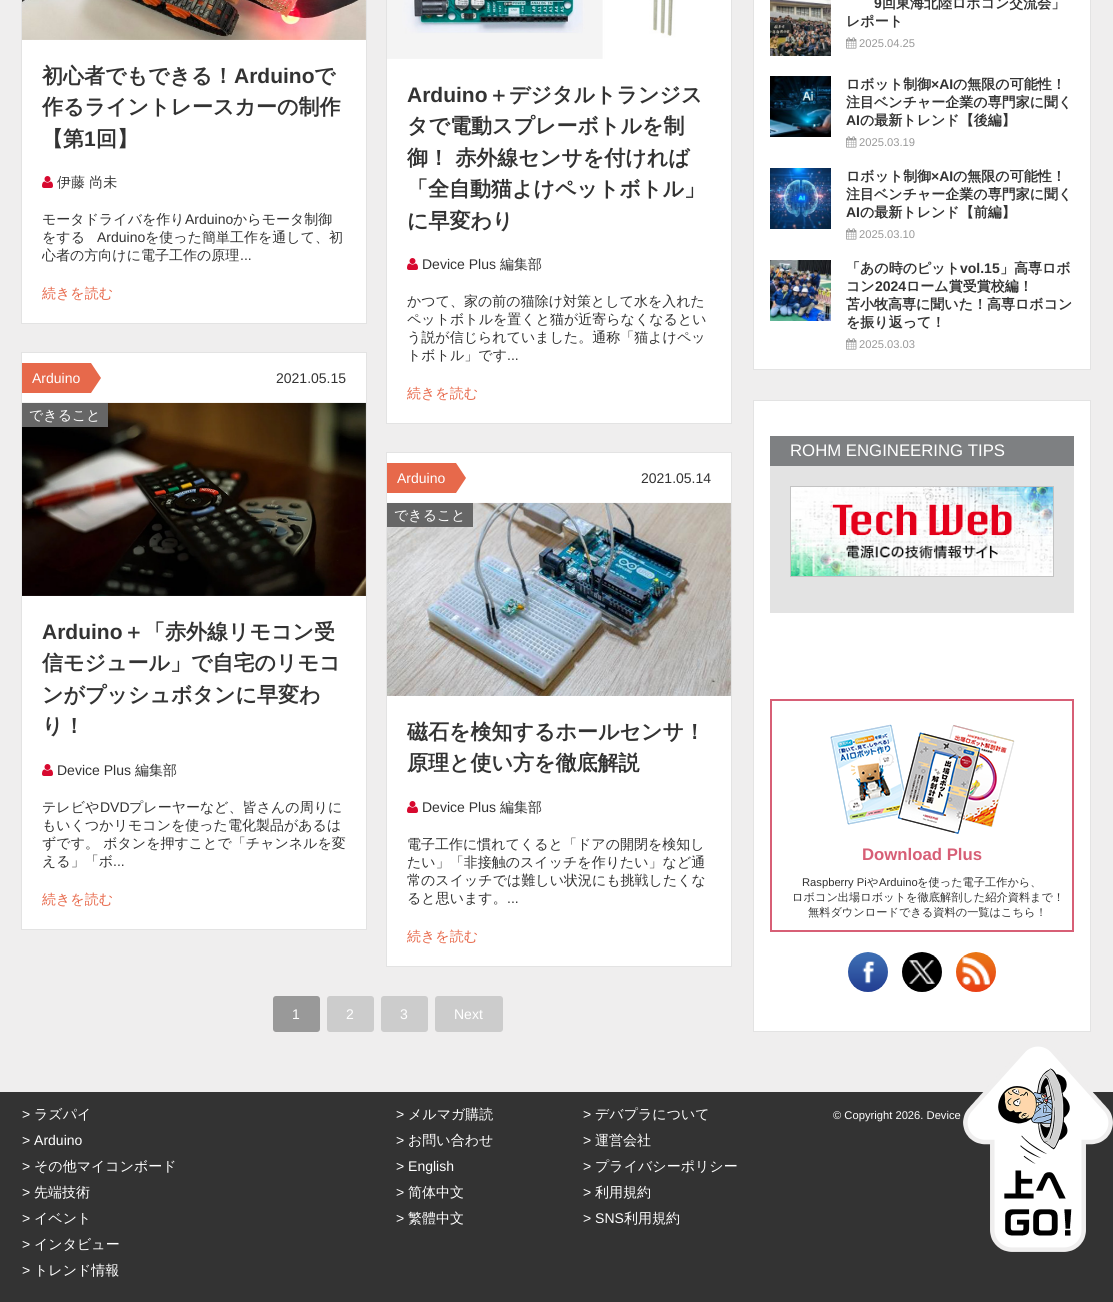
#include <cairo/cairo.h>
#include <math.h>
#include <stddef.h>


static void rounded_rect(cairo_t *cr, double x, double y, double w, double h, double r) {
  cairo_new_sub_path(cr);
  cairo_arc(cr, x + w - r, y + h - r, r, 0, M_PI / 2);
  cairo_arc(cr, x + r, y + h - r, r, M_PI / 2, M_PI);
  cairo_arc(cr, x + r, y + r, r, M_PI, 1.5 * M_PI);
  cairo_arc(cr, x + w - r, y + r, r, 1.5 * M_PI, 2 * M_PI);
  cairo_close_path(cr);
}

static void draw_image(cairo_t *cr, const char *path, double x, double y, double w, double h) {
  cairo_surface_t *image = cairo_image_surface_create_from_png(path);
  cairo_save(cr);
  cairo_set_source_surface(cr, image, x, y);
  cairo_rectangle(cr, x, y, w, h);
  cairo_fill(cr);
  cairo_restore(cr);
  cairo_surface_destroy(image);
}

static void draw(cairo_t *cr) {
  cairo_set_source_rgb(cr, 239 / 255.0, 238 / 255.0, 238 / 255.0);
  cairo_paint(cr);
  cairo_rectangle(cr, 21.5, -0.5, 345, 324);
  cairo_set_source_rgb(cr, 227 / 255.0, 227 / 255.0, 227 / 255.0);
  cairo_set_line_width(cr, 1);
  cairo_stroke(cr);
  cairo_set_source_rgb(cr, 1, 1, 1);
  cairo_rectangle(cr, 22, 0, 344, 323);
  cairo_fill(cr);
  draw_image(cr, "images/1.png", 22, 0, 344, 40);
  draw_image(cr, "images/2.png", 42, 176, 11, 12);
  cairo_rectangle(cr, 386.5, -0.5, 345, 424);
  cairo_set_source_rgb(cr, 227 / 255.0, 227 / 255.0, 227 / 255.0);
  cairo_stroke(cr);
  cairo_set_source_rgb(cr, 1, 1, 1);
  cairo_rectangle(cr, 387, 0, 344, 423);
  cairo_fill(cr);
  draw_image(cr, "images/3.png", 387, 0, 344, 59);
  draw_image(cr, "images/2.png", 407, 258, 11, 12);
  cairo_rectangle(cr, 21.5, 352.5, 345, 577);
  cairo_set_source_rgb(cr, 227 / 255.0, 227 / 255.0, 227 / 255.0);
  cairo_stroke(cr);
  cairo_set_source_rgb(cr, 1, 1, 1);
  cairo_rectangle(cr, 22, 353, 344, 576);
  cairo_fill(cr);
  cairo_set_source_rgb(cr, 231 / 255.0, 105 / 255.0, 75 / 255.0);
  cairo_rectangle(cr, 22, 363, 69, 30);
  cairo_fill(cr);
  cairo_new_path(cr);
  cairo_move_to(cr, 91, 393);
  cairo_line_to(cr, 91, 363);
  cairo_line_to(cr, 101, 378);
  cairo_close_path(cr);
  cairo_fill(cr);
  draw_image(cr, "images/4.png", 22, 402, 344, 194);
  cairo_set_source_rgb(cr, 102 / 255.0, 102 / 255.0, 102 / 255.0);
  cairo_rectangle(cr, 22, 403, 86, 24);
  cairo_fill(cr);
  draw_image(cr, "images/2.png", 42, 764, 11, 12);
  cairo_rectangle(cr, 386.5, 452.5, 345, 514);
  cairo_set_source_rgb(cr, 227 / 255.0, 227 / 255.0, 227 / 255.0);
  cairo_stroke(cr);
  cairo_set_source_rgb(cr, 1, 1, 1);
  cairo_rectangle(cr, 387, 453, 344, 513);
  cairo_fill(cr);
  cairo_set_source_rgb(cr, 231 / 255.0, 105 / 255.0, 75 / 255.0);
  cairo_rectangle(cr, 387, 463, 69, 30);
  cairo_fill(cr);
  cairo_new_path(cr);
  cairo_move_to(cr, 456, 493);
  cairo_line_to(cr, 456, 463);
  cairo_line_to(cr, 466, 478);
  cairo_close_path(cr);
  cairo_fill(cr);
  draw_image(cr, "images/5.png", 387, 502, 344, 194);
  cairo_set_source_rgb(cr, 102 / 255.0, 102 / 255.0, 102 / 255.0);
  cairo_rectangle(cr, 387, 503, 86, 24);
  cairo_fill(cr);
  draw_image(cr, "images/2.png", 407, 801, 11, 12);
  cairo_set_source_rgb(cr, 153 / 255.0, 153 / 255.0, 153 / 255.0);
  rounded_rect(cr, 273, 996, 47, 36, 3);
  cairo_fill(cr);
  cairo_set_source_rgb(cr, 204 / 255.0, 204 / 255.0, 204 / 255.0);
  rounded_rect(cr, 327, 996, 47, 36, 3);
  cairo_fill(cr);
  rounded_rect(cr, 381, 996, 47, 36, 3);
  cairo_fill(cr);
  rounded_rect(cr, 435, 996, 68, 36, 3);
  cairo_fill(cr);
  cairo_set_source_rgb(cr, 1, 1, 1);
  cairo_rectangle(cr, 753.5, -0.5, 337, 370);
  cairo_fill_preserve(cr);
  cairo_set_source_rgb(cr, 227 / 255.0, 227 / 255.0, 227 / 255.0);
  cairo_stroke(cr);
  draw_image(cr, "images/6.png", 770, 0, 61, 56);
  draw_image(cr, "images/7.png", 846, 37, 11, 12);
  draw_image(cr, "images/8.png", 770, 76, 61, 61);
  draw_image(cr, "images/7.png", 846, 136, 11, 12);
  draw_image(cr, "images/9.png", 770, 168, 61, 61);
  draw_image(cr, "images/7.png", 846, 228, 11, 12);
  draw_image(cr, "images/10.png", 770, 260, 61, 61);
  draw_image(cr, "images/7.png", 846, 338, 11, 12);
  cairo_set_source_rgb(cr, 1, 1, 1);
  cairo_rectangle(cr, 753.5, 400.5, 337, 631);
  cairo_fill_preserve(cr);
  cairo_set_source_rgb(cr, 227 / 255.0, 227 / 255.0, 227 / 255.0);
  cairo_stroke(cr);
  cairo_set_source_rgb(cr, 126 / 255.0, 128 / 255.0, 130 / 255.0);
  cairo_rectangle(cr, 770, 436, 304, 30);
  cairo_fill(cr);
  cairo_set_source_rgb(cr, 227 / 255.0, 227 / 255.0, 227 / 255.0);
  cairo_rectangle(cr, 770, 466, 304, 147);
  cairo_fill(cr);
  cairo_rectangle(cr, 790.5, 486.5, 263, 90);
  cairo_set_source_rgb(cr, 195 / 255.0, 195 / 255.0, 195 / 255.0);
  cairo_stroke(cr);
  draw_image(cr, "images/11.png", 791, 487, 262, 89);
  cairo_rectangle(cr, 771, 700, 302, 231);
  cairo_set_source_rgb(cr, 215 / 255.0, 95 / 255.0, 118 / 255.0);
  cairo_set_line_width(cr, 2);
  cairo_stroke(cr);
  draw_image(cr, "images/12.png", 830, 724, 185, 110);
  draw_image(cr, "images/13.png", 848, 952, 40, 40);
  draw_image(cr, "images/14.png", 902, 952, 40, 40);
  draw_image(cr, "images/15.png", 956, 952, 40, 40);
  cairo_set_source_rgb(cr, 51 / 255.0, 51 / 255.0, 51 / 255.0);
  cairo_rectangle(cr, 0, 1092, 1113, 210);
  cairo_fill(cr);
  draw_image(cr, "images/16.png", 963, 1046, 150, 206);
  cairo_select_font_face(cr, "WenQuanYi Zen Hei", CAIRO_FONT_SLANT_NORMAL, CAIRO_FONT_WEIGHT_BOLD);
  cairo_set_font_size(cr, 21);
  cairo_move_to(cr, 42, 83);
  cairo_show_text(cr, "初心者でもできる！");
  cairo_select_font_face(cr, "Liberation Sans", CAIRO_FONT_SLANT_NORMAL, CAIRO_FONT_WEIGHT_BOLD);
  cairo_move_to(cr, 234, 83);
  cairo_show_text(cr, "Arduino");
  cairo_select_font_face(cr, "WenQuanYi Zen Hei", CAIRO_FONT_SLANT_NORMAL, CAIRO_FONT_WEIGHT_BOLD);
  cairo_move_to(cr, 314, 83);
  cairo_show_text(cr, "で");
  cairo_move_to(cr, 42, 114);
  cairo_show_text(cr, "作るライントレースカーの制作");
  cairo_move_to(cr, 42, 146);
  cairo_show_text(cr, "【第");
  cairo_select_font_face(cr, "Liberation Sans", CAIRO_FONT_SLANT_NORMAL, CAIRO_FONT_WEIGHT_BOLD);
  cairo_move_to(cr, 84, 146);
  cairo_show_text(cr, "1");
  cairo_select_font_face(cr, "WenQuanYi Zen Hei", CAIRO_FONT_SLANT_NORMAL, CAIRO_FONT_WEIGHT_BOLD);
  cairo_move_to(cr, 96, 146);
  cairo_show_text(cr, "回】");
  cairo_select_font_face(cr, "WenQuanYi Zen Hei Medium", CAIRO_FONT_SLANT_NORMAL, CAIRO_FONT_WEIGHT_NORMAL);
  cairo_set_font_size(cr, 14);
  cairo_move_to(cr, 57, 187);
  cairo_show_text(cr, "伊藤 尚未");
  cairo_move_to(cr, 42, 224);
  cairo_show_text(cr, "モータドライバを作り");
  cairo_select_font_face(cr, "Liberation Sans", CAIRO_FONT_SLANT_NORMAL, CAIRO_FONT_WEIGHT_NORMAL);
  cairo_move_to(cr, 185, 224);
  cairo_show_text(cr, "Arduino");
  cairo_select_font_face(cr, "WenQuanYi Zen Hei Medium", CAIRO_FONT_SLANT_NORMAL, CAIRO_FONT_WEIGHT_NORMAL);
  cairo_move_to(cr, 233, 224);
  cairo_show_text(cr, "からモータ制御");
  cairo_move_to(cr, 42, 242);
  cairo_show_text(cr, "をする");
  cairo_select_font_face(cr, "Liberation Sans", CAIRO_FONT_SLANT_NORMAL, CAIRO_FONT_WEIGHT_NORMAL);
  cairo_move_to(cr, 97, 242);
  cairo_show_text(cr, "Arduino");
  cairo_select_font_face(cr, "WenQuanYi Zen Hei Medium", CAIRO_FONT_SLANT_NORMAL, CAIRO_FONT_WEIGHT_NORMAL);
  cairo_move_to(cr, 145, 242);
  cairo_show_text(cr, "を使った簡単工作を通して、初");
  cairo_move_to(cr, 42, 260);
  cairo_show_text(cr, "心者の方向けに電子工作の原理");
  cairo_select_font_face(cr, "Liberation Sans", CAIRO_FONT_SLANT_NORMAL, CAIRO_FONT_WEIGHT_NORMAL);
  cairo_move_to(cr, 240, 260);
  cairo_show_text(cr, "...");
  cairo_select_font_face(cr, "WenQuanYi Zen Hei Medium", CAIRO_FONT_SLANT_NORMAL, CAIRO_FONT_WEIGHT_NORMAL);
  cairo_set_source_rgb(cr, 231 / 255.0, 105 / 255.0, 75 / 255.0);
  cairo_move_to(cr, 42, 298);
  cairo_show_text(cr, "続きを読む");
  cairo_select_font_face(cr, "Liberation Sans", CAIRO_FONT_SLANT_NORMAL, CAIRO_FONT_WEIGHT_BOLD);
  cairo_set_font_size(cr, 21);
  cairo_set_source_rgb(cr, 51 / 255.0, 51 / 255.0, 51 / 255.0);
  cairo_move_to(cr, 407, 102);
  cairo_show_text(cr, "Arduino");
  cairo_select_font_face(cr, "WenQuanYi Zen Hei", CAIRO_FONT_SLANT_NORMAL, CAIRO_FONT_WEIGHT_BOLD);
  cairo_move_to(cr, 488, 102);
  cairo_show_text(cr, "＋デジタルトランジス");
  cairo_move_to(cr, 407, 133);
  cairo_show_text(cr, "タで電動スプレーボトルを制");
  cairo_move_to(cr, 407, 165);
  cairo_show_text(cr, "御！ 赤外線センサを付ければ");
  cairo_move_to(cr, 407, 196);
  cairo_show_text(cr, "「全自動猫よけペットボトル」");
  cairo_move_to(cr, 407, 228);
  cairo_show_text(cr, "に早変わり");
  cairo_select_font_face(cr, "Liberation Sans", CAIRO_FONT_SLANT_NORMAL, CAIRO_FONT_WEIGHT_NORMAL);
  cairo_set_font_size(cr, 14);
  cairo_move_to(cr, 422, 269);
  cairo_show_text(cr, "Device Plus");
  cairo_select_font_face(cr, "WenQuanYi Zen Hei Medium", CAIRO_FONT_SLANT_NORMAL, CAIRO_FONT_WEIGHT_NORMAL);
  cairo_move_to(cr, 500, 269);
  cairo_show_text(cr, "編集部");
  cairo_move_to(cr, 407, 306);
  cairo_show_text(cr, "かつて、家の前の猫除け対策として水を入れた");
  cairo_move_to(cr, 407, 324);
  cairo_show_text(cr, "ペットボトルを置くと猫が近寄らなくなるとい");
  cairo_move_to(cr, 407, 342);
  cairo_show_text(cr, "う説が信じられていました。通称「猫よけペッ");
  cairo_move_to(cr, 407, 360);
  cairo_show_text(cr, "トボトル」です");
  cairo_select_font_face(cr, "Liberation Sans", CAIRO_FONT_SLANT_NORMAL, CAIRO_FONT_WEIGHT_NORMAL);
  cairo_move_to(cr, 507, 360);
  cairo_show_text(cr, "...");
  cairo_select_font_face(cr, "WenQuanYi Zen Hei Medium", CAIRO_FONT_SLANT_NORMAL, CAIRO_FONT_WEIGHT_NORMAL);
  cairo_set_source_rgb(cr, 231 / 255.0, 105 / 255.0, 75 / 255.0);
  cairo_move_to(cr, 407, 398);
  cairo_show_text(cr, "続きを読む");
  cairo_select_font_face(cr, "Liberation Sans", CAIRO_FONT_SLANT_NORMAL, CAIRO_FONT_WEIGHT_NORMAL);
  cairo_set_source_rgb(cr, 1, 1, 1);
  cairo_move_to(cr, 32, 383);
  cairo_show_text(cr, "Arduino");
  cairo_set_source_rgb(cr, 51 / 255.0, 51 / 255.0, 51 / 255.0);
  cairo_move_to(cr, 276, 383);
  cairo_show_text(cr, "2021.05.15");
  cairo_select_font_face(cr, "WenQuanYi Zen Hei Medium", CAIRO_FONT_SLANT_NORMAL, CAIRO_FONT_WEIGHT_NORMAL);
  cairo_set_source_rgb(cr, 1, 1, 1);
  cairo_move_to(cr, 29, 420);
  cairo_show_text(cr, "できること");
  cairo_select_font_face(cr, "Liberation Sans", CAIRO_FONT_SLANT_NORMAL, CAIRO_FONT_WEIGHT_BOLD);
  cairo_set_font_size(cr, 21);
  cairo_set_source_rgb(cr, 51 / 255.0, 51 / 255.0, 51 / 255.0);
  cairo_move_to(cr, 42, 639);
  cairo_show_text(cr, "Arduino");
  cairo_select_font_face(cr, "WenQuanYi Zen Hei", CAIRO_FONT_SLANT_NORMAL, CAIRO_FONT_WEIGHT_BOLD);
  cairo_move_to(cr, 123, 639);
  cairo_show_text(cr, "＋「赤外線リモコン受");
  cairo_move_to(cr, 42, 670);
  cairo_show_text(cr, "信モジュール」で自宅のリモコ");
  cairo_move_to(cr, 42, 702);
  cairo_show_text(cr, "ンがプッシュボタンに早変わ");
  cairo_move_to(cr, 42, 733);
  cairo_show_text(cr, "り！");
  cairo_select_font_face(cr, "Liberation Sans", CAIRO_FONT_SLANT_NORMAL, CAIRO_FONT_WEIGHT_NORMAL);
  cairo_set_font_size(cr, 14);
  cairo_move_to(cr, 57, 775);
  cairo_show_text(cr, "Device Plus");
  cairo_select_font_face(cr, "WenQuanYi Zen Hei Medium", CAIRO_FONT_SLANT_NORMAL, CAIRO_FONT_WEIGHT_NORMAL);
  cairo_move_to(cr, 135, 775);
  cairo_show_text(cr, "編集部");
  cairo_move_to(cr, 42, 812);
  cairo_show_text(cr, "テレビや");
  cairo_select_font_face(cr, "Liberation Sans", CAIRO_FONT_SLANT_NORMAL, CAIRO_FONT_WEIGHT_NORMAL);
  cairo_move_to(cr, 100, 812);
  cairo_show_text(cr, "DVD");
  cairo_select_font_face(cr, "WenQuanYi Zen Hei Medium", CAIRO_FONT_SLANT_NORMAL, CAIRO_FONT_WEIGHT_NORMAL);
  cairo_move_to(cr, 129, 812);
  cairo_show_text(cr, "プレーヤーなど、皆さんの周りに");
  cairo_move_to(cr, 42, 830);
  cairo_show_text(cr, "もいくつかリモコンを使った電化製品があるは");
  cairo_move_to(cr, 42, 848);
  cairo_show_text(cr, "ずです。 ボタンを押すことで「チャンネルを変");
  cairo_move_to(cr, 42, 866);
  cairo_show_text(cr, "える」「ボ");
  cairo_select_font_face(cr, "Liberation Sans", CAIRO_FONT_SLANT_NORMAL, CAIRO_FONT_WEIGHT_NORMAL);
  cairo_move_to(cr, 113, 866);
  cairo_show_text(cr, "...");
  cairo_select_font_face(cr, "WenQuanYi Zen Hei Medium", CAIRO_FONT_SLANT_NORMAL, CAIRO_FONT_WEIGHT_NORMAL);
  cairo_set_source_rgb(cr, 231 / 255.0, 105 / 255.0, 75 / 255.0);
  cairo_move_to(cr, 42, 904);
  cairo_show_text(cr, "続きを読む");
  cairo_select_font_face(cr, "Liberation Sans", CAIRO_FONT_SLANT_NORMAL, CAIRO_FONT_WEIGHT_NORMAL);
  cairo_set_source_rgb(cr, 1, 1, 1);
  cairo_move_to(cr, 397, 483);
  cairo_show_text(cr, "Arduino");
  cairo_set_source_rgb(cr, 51 / 255.0, 51 / 255.0, 51 / 255.0);
  cairo_move_to(cr, 641, 483);
  cairo_show_text(cr, "2021.05.14");
  cairo_select_font_face(cr, "WenQuanYi Zen Hei Medium", CAIRO_FONT_SLANT_NORMAL, CAIRO_FONT_WEIGHT_NORMAL);
  cairo_set_source_rgb(cr, 1, 1, 1);
  cairo_move_to(cr, 394, 520);
  cairo_show_text(cr, "できること");
  cairo_select_font_face(cr, "WenQuanYi Zen Hei", CAIRO_FONT_SLANT_NORMAL, CAIRO_FONT_WEIGHT_BOLD);
  cairo_set_font_size(cr, 21);
  cairo_set_source_rgb(cr, 51 / 255.0, 51 / 255.0, 51 / 255.0);
  cairo_move_to(cr, 407, 739);
  cairo_show_text(cr, "磁石を検知するホールセンサ！");
  cairo_move_to(cr, 407, 770);
  cairo_show_text(cr, "原理と使い方を徹底解説");
  cairo_select_font_face(cr, "Liberation Sans", CAIRO_FONT_SLANT_NORMAL, CAIRO_FONT_WEIGHT_NORMAL);
  cairo_set_font_size(cr, 14);
  cairo_move_to(cr, 422, 812);
  cairo_show_text(cr, "Device Plus");
  cairo_select_font_face(cr, "WenQuanYi Zen Hei Medium", CAIRO_FONT_SLANT_NORMAL, CAIRO_FONT_WEIGHT_NORMAL);
  cairo_move_to(cr, 500, 812);
  cairo_show_text(cr, "編集部");
  cairo_move_to(cr, 407, 849);
  cairo_show_text(cr, "電子工作に慣れてくると「ドアの開閉を検知し");
  cairo_move_to(cr, 407, 867);
  cairo_show_text(cr, "たい」「非接触のスイッチを作りたい」など通");
  cairo_move_to(cr, 407, 885);
  cairo_show_text(cr, "常のスイッチでは難しい状況にも挑戦したくな");
  cairo_move_to(cr, 407, 903);
  cairo_show_text(cr, "ると思います。");
  cairo_select_font_face(cr, "Liberation Sans", CAIRO_FONT_SLANT_NORMAL, CAIRO_FONT_WEIGHT_NORMAL);
  cairo_move_to(cr, 507, 903);
  cairo_show_text(cr, "...");
  cairo_select_font_face(cr, "WenQuanYi Zen Hei Medium", CAIRO_FONT_SLANT_NORMAL, CAIRO_FONT_WEIGHT_NORMAL);
  cairo_set_source_rgb(cr, 231 / 255.0, 105 / 255.0, 75 / 255.0);
  cairo_move_to(cr, 407, 941);
  cairo_show_text(cr, "続きを読む");
  cairo_select_font_face(cr, "Liberation Sans", CAIRO_FONT_SLANT_NORMAL, CAIRO_FONT_WEIGHT_NORMAL);
  cairo_set_source_rgb(cr, 1, 1, 1);
  cairo_move_to(cr, 292, 1019);
  cairo_show_text(cr, "1");
  cairo_move_to(cr, 346, 1019);
  cairo_show_text(cr, "2");
  cairo_move_to(cr, 400, 1019);
  cairo_show_text(cr, "3");
  cairo_move_to(cr, 454, 1019);
  cairo_show_text(cr, "Next");
  cairo_select_font_face(cr, "Liberation Sans", CAIRO_FONT_SLANT_NORMAL, CAIRO_FONT_WEIGHT_BOLD);
  cairo_set_source_rgb(cr, 51 / 255.0, 51 / 255.0, 51 / 255.0);
  cairo_move_to(cr, 874, 8);
  cairo_show_text(cr, "9");
  cairo_select_font_face(cr, "WenQuanYi Zen Hei", CAIRO_FONT_SLANT_NORMAL, CAIRO_FONT_WEIGHT_BOLD);
  cairo_move_to(cr, 882, 8);
  cairo_show_text(cr, "回東海北陸ロボコン交流会」");
  cairo_move_to(cr, 846, 26);
  cairo_show_text(cr, "レポート");
  cairo_select_font_face(cr, "Liberation Sans", CAIRO_FONT_SLANT_NORMAL, CAIRO_FONT_WEIGHT_NORMAL);
  cairo_set_font_size(cr, 11.2);
  cairo_set_source_rgb(cr, 153 / 255.0, 153 / 255.0, 153 / 255.0);
  cairo_move_to(cr, 859, 47);
  cairo_show_text(cr, "2025.04.25");
  cairo_select_font_face(cr, "WenQuanYi Zen Hei", CAIRO_FONT_SLANT_NORMAL, CAIRO_FONT_WEIGHT_BOLD);
  cairo_set_font_size(cr, 14);
  cairo_set_source_rgb(cr, 51 / 255.0, 51 / 255.0, 51 / 255.0);
  cairo_move_to(cr, 846, 89);
  cairo_show_text(cr, "ロボット制御");
  cairo_select_font_face(cr, "Liberation Sans", CAIRO_FONT_SLANT_NORMAL, CAIRO_FONT_WEIGHT_BOLD);
  cairo_move_to(cr, 931, 89);
  cairo_show_text(cr, "×AI");
  cairo_select_font_face(cr, "WenQuanYi Zen Hei", CAIRO_FONT_SLANT_NORMAL, CAIRO_FONT_WEIGHT_BOLD);
  cairo_move_to(cr, 953, 89);
  cairo_show_text(cr, "の無限の可能性！");
  cairo_move_to(cr, 846, 107);
  cairo_show_text(cr, "注目ベンチャー企業の専門家に聞く");
  cairo_select_font_face(cr, "Liberation Sans", CAIRO_FONT_SLANT_NORMAL, CAIRO_FONT_WEIGHT_BOLD);
  cairo_move_to(cr, 846, 125);
  cairo_show_text(cr, "AI");
  cairo_select_font_face(cr, "WenQuanYi Zen Hei", CAIRO_FONT_SLANT_NORMAL, CAIRO_FONT_WEIGHT_BOLD);
  cairo_move_to(cr, 860, 125);
  cairo_show_text(cr, "の最新トレンド【後編】");
  cairo_select_font_face(cr, "Liberation Sans", CAIRO_FONT_SLANT_NORMAL, CAIRO_FONT_WEIGHT_NORMAL);
  cairo_set_font_size(cr, 11.2);
  cairo_set_source_rgb(cr, 153 / 255.0, 153 / 255.0, 153 / 255.0);
  cairo_move_to(cr, 859, 146);
  cairo_show_text(cr, "2025.03.19");
  cairo_select_font_face(cr, "WenQuanYi Zen Hei", CAIRO_FONT_SLANT_NORMAL, CAIRO_FONT_WEIGHT_BOLD);
  cairo_set_font_size(cr, 14);
  cairo_set_source_rgb(cr, 51 / 255.0, 51 / 255.0, 51 / 255.0);
  cairo_move_to(cr, 846, 181);
  cairo_show_text(cr, "ロボット制御");
  cairo_select_font_face(cr, "Liberation Sans", CAIRO_FONT_SLANT_NORMAL, CAIRO_FONT_WEIGHT_BOLD);
  cairo_move_to(cr, 931, 181);
  cairo_show_text(cr, "×AI");
  cairo_select_font_face(cr, "WenQuanYi Zen Hei", CAIRO_FONT_SLANT_NORMAL, CAIRO_FONT_WEIGHT_BOLD);
  cairo_move_to(cr, 953, 181);
  cairo_show_text(cr, "の無限の可能性！");
  cairo_move_to(cr, 846, 199);
  cairo_show_text(cr, "注目ベンチャー企業の専門家に聞く");
  cairo_select_font_face(cr, "Liberation Sans", CAIRO_FONT_SLANT_NORMAL, CAIRO_FONT_WEIGHT_BOLD);
  cairo_move_to(cr, 846, 217);
  cairo_show_text(cr, "AI");
  cairo_select_font_face(cr, "WenQuanYi Zen Hei", CAIRO_FONT_SLANT_NORMAL, CAIRO_FONT_WEIGHT_BOLD);
  cairo_move_to(cr, 860, 217);
  cairo_show_text(cr, "の最新トレンド【前編】");
  cairo_select_font_face(cr, "Liberation Sans", CAIRO_FONT_SLANT_NORMAL, CAIRO_FONT_WEIGHT_NORMAL);
  cairo_set_font_size(cr, 11.2);
  cairo_set_source_rgb(cr, 153 / 255.0, 153 / 255.0, 153 / 255.0);
  cairo_move_to(cr, 859, 238);
  cairo_show_text(cr, "2025.03.10");
  cairo_select_font_face(cr, "WenQuanYi Zen Hei", CAIRO_FONT_SLANT_NORMAL, CAIRO_FONT_WEIGHT_BOLD);
  cairo_set_font_size(cr, 14);
  cairo_set_source_rgb(cr, 51 / 255.0, 51 / 255.0, 51 / 255.0);
  cairo_move_to(cr, 846, 273);
  cairo_show_text(cr, "「あの時のピット");
  cairo_select_font_face(cr, "Liberation Sans", CAIRO_FONT_SLANT_NORMAL, CAIRO_FONT_WEIGHT_BOLD);
  cairo_move_to(cr, 960, 273);
  cairo_show_text(cr, "vol.15");
  cairo_select_font_face(cr, "WenQuanYi Zen Hei", CAIRO_FONT_SLANT_NORMAL, CAIRO_FONT_WEIGHT_BOLD);
  cairo_move_to(cr, 1000, 273);
  cairo_show_text(cr, "」高専ロボ");
  cairo_move_to(cr, 846, 291);
  cairo_show_text(cr, "コン");
  cairo_select_font_face(cr, "Liberation Sans", CAIRO_FONT_SLANT_NORMAL, CAIRO_FONT_WEIGHT_BOLD);
  cairo_move_to(cr, 875, 291);
  cairo_show_text(cr, "2024");
  cairo_select_font_face(cr, "WenQuanYi Zen Hei", CAIRO_FONT_SLANT_NORMAL, CAIRO_FONT_WEIGHT_BOLD);
  cairo_move_to(cr, 906, 291);
  cairo_show_text(cr, "ローム賞受賞校編！");
  cairo_move_to(cr, 846, 309);
  cairo_show_text(cr, "苫小牧高専に聞いた！高専ロボコン");
  cairo_move_to(cr, 846, 327);
  cairo_show_text(cr, "を振り返って！");
  cairo_select_font_face(cr, "Liberation Sans", CAIRO_FONT_SLANT_NORMAL, CAIRO_FONT_WEIGHT_NORMAL);
  cairo_set_font_size(cr, 11.2);
  cairo_set_source_rgb(cr, 153 / 255.0, 153 / 255.0, 153 / 255.0);
  cairo_move_to(cr, 859, 348);
  cairo_show_text(cr, "2025.03.03");
  cairo_set_font_size(cr, 16.75);
  cairo_set_source_rgb(cr, 1, 1, 1);
  cairo_move_to(cr, 790, 456);
  cairo_show_text(cr, "ROHM ENGINEERING TIPS");
  cairo_select_font_face(cr, "Liberation Sans", CAIRO_FONT_SLANT_NORMAL, CAIRO_FONT_WEIGHT_BOLD);
  cairo_set_source_rgb(cr, 215 / 255.0, 95 / 255.0, 118 / 255.0);
  cairo_move_to(cr, 862, 860);
  cairo_show_text(cr, "Download Plus");
  cairo_select_font_face(cr, "Liberation Sans", CAIRO_FONT_SLANT_NORMAL, CAIRO_FONT_WEIGHT_NORMAL);
  cairo_set_font_size(cr, 11.2);
  cairo_set_source_rgb(cr, 51 / 255.0, 51 / 255.0, 51 / 255.0);
  cairo_move_to(cr, 802, 886);
  cairo_show_text(cr, "Raspberry Pi");
  cairo_select_font_face(cr, "WenQuanYi Zen Hei Medium", CAIRO_FONT_SLANT_NORMAL, CAIRO_FONT_WEIGHT_NORMAL);
  cairo_move_to(cr, 867, 886);
  cairo_show_text(cr, "や");
  cairo_select_font_face(cr, "Liberation Sans", CAIRO_FONT_SLANT_NORMAL, CAIRO_FONT_WEIGHT_NORMAL);
  cairo_move_to(cr, 879, 886);
  cairo_show_text(cr, "Arduino");
  cairo_select_font_face(cr, "WenQuanYi Zen Hei Medium", CAIRO_FONT_SLANT_NORMAL, CAIRO_FONT_WEIGHT_NORMAL);
  cairo_move_to(cr, 917, 886);
  cairo_show_text(cr, "を使った電子工作から、");
  cairo_move_to(cr, 792, 901);
  cairo_show_text(cr, "ロボコン出場ロボットを徹底解剖した紹介資料まで！");
  cairo_move_to(cr, 808, 916);
  cairo_show_text(cr, "無料ダウンロードできる資料の一覧はこちら！");
  cairo_select_font_face(cr, "Liberation Sans", CAIRO_FONT_SLANT_NORMAL, CAIRO_FONT_WEIGHT_NORMAL);
  cairo_set_font_size(cr, 14);
  cairo_set_source_rgb(cr, 1, 1, 1);
  cairo_move_to(cr, 22, 1119);
  cairo_show_text(cr, ">");
  cairo_select_font_face(cr, "WenQuanYi Zen Hei Medium", CAIRO_FONT_SLANT_NORMAL, CAIRO_FONT_WEIGHT_NORMAL);
  cairo_move_to(cr, 34, 1119);
  cairo_show_text(cr, "ラズパイ");
  cairo_select_font_face(cr, "Liberation Sans", CAIRO_FONT_SLANT_NORMAL, CAIRO_FONT_WEIGHT_NORMAL);
  cairo_move_to(cr, 22, 1145);
  cairo_show_text(cr, "> Arduino");
  cairo_move_to(cr, 22, 1171);
  cairo_show_text(cr, ">");
  cairo_select_font_face(cr, "WenQuanYi Zen Hei Medium", CAIRO_FONT_SLANT_NORMAL, CAIRO_FONT_WEIGHT_NORMAL);
  cairo_move_to(cr, 34, 1171);
  cairo_show_text(cr, "その他マイコンボード");
  cairo_select_font_face(cr, "Liberation Sans", CAIRO_FONT_SLANT_NORMAL, CAIRO_FONT_WEIGHT_NORMAL);
  cairo_move_to(cr, 22, 1197);
  cairo_show_text(cr, ">");
  cairo_select_font_face(cr, "WenQuanYi Zen Hei Medium", CAIRO_FONT_SLANT_NORMAL, CAIRO_FONT_WEIGHT_NORMAL);
  cairo_move_to(cr, 34, 1197);
  cairo_show_text(cr, "先端技術");
  cairo_select_font_face(cr, "Liberation Sans", CAIRO_FONT_SLANT_NORMAL, CAIRO_FONT_WEIGHT_NORMAL);
  cairo_move_to(cr, 22, 1223);
  cairo_show_text(cr, ">");
  cairo_select_font_face(cr, "WenQuanYi Zen Hei Medium", CAIRO_FONT_SLANT_NORMAL, CAIRO_FONT_WEIGHT_NORMAL);
  cairo_move_to(cr, 34, 1223);
  cairo_show_text(cr, "イベント");
  cairo_select_font_face(cr, "Liberation Sans", CAIRO_FONT_SLANT_NORMAL, CAIRO_FONT_WEIGHT_NORMAL);
  cairo_move_to(cr, 22, 1249);
  cairo_show_text(cr, ">");
  cairo_select_font_face(cr, "WenQuanYi Zen Hei Medium", CAIRO_FONT_SLANT_NORMAL, CAIRO_FONT_WEIGHT_NORMAL);
  cairo_move_to(cr, 34, 1249);
  cairo_show_text(cr, "インタビュー");
  cairo_select_font_face(cr, "Liberation Sans", CAIRO_FONT_SLANT_NORMAL, CAIRO_FONT_WEIGHT_NORMAL);
  cairo_move_to(cr, 22, 1275);
  cairo_show_text(cr, ">");
  cairo_select_font_face(cr, "WenQuanYi Zen Hei Medium", CAIRO_FONT_SLANT_NORMAL, CAIRO_FONT_WEIGHT_NORMAL);
  cairo_move_to(cr, 34, 1275);
  cairo_show_text(cr, "トレンド情報");
  cairo_select_font_face(cr, "Liberation Sans", CAIRO_FONT_SLANT_NORMAL, CAIRO_FONT_WEIGHT_NORMAL);
  cairo_move_to(cr, 396, 1119);
  cairo_show_text(cr, ">");
  cairo_select_font_face(cr, "WenQuanYi Zen Hei Medium", CAIRO_FONT_SLANT_NORMAL, CAIRO_FONT_WEIGHT_NORMAL);
  cairo_move_to(cr, 408, 1119);
  cairo_show_text(cr, "メルマガ購読");
  cairo_select_font_face(cr, "Liberation Sans", CAIRO_FONT_SLANT_NORMAL, CAIRO_FONT_WEIGHT_NORMAL);
  cairo_move_to(cr, 396, 1145);
  cairo_show_text(cr, ">");
  cairo_select_font_face(cr, "WenQuanYi Zen Hei Medium", CAIRO_FONT_SLANT_NORMAL, CAIRO_FONT_WEIGHT_NORMAL);
  cairo_move_to(cr, 408, 1145);
  cairo_show_text(cr, "お問い合わせ");
  cairo_select_font_face(cr, "Liberation Sans", CAIRO_FONT_SLANT_NORMAL, CAIRO_FONT_WEIGHT_NORMAL);
  cairo_move_to(cr, 396, 1171);
  cairo_show_text(cr, "> English");
  cairo_move_to(cr, 396, 1197);
  cairo_show_text(cr, ">");
  cairo_select_font_face(cr, "WenQuanYi Zen Hei Medium", CAIRO_FONT_SLANT_NORMAL, CAIRO_FONT_WEIGHT_NORMAL);
  cairo_move_to(cr, 408, 1197);
  cairo_show_text(cr, "简体中文");
  cairo_select_font_face(cr, "Liberation Sans", CAIRO_FONT_SLANT_NORMAL, CAIRO_FONT_WEIGHT_NORMAL);
  cairo_move_to(cr, 396, 1223);
  cairo_show_text(cr, ">");
  cairo_select_font_face(cr, "WenQuanYi Zen Hei Medium", CAIRO_FONT_SLANT_NORMAL, CAIRO_FONT_WEIGHT_NORMAL);
  cairo_move_to(cr, 408, 1223);
  cairo_show_text(cr, "繁體中文");
  cairo_select_font_face(cr, "Liberation Sans", CAIRO_FONT_SLANT_NORMAL, CAIRO_FONT_WEIGHT_NORMAL);
  cairo_move_to(cr, 583, 1119);
  cairo_show_text(cr, ">");
  cairo_select_font_face(cr, "WenQuanYi Zen Hei Medium", CAIRO_FONT_SLANT_NORMAL, CAIRO_FONT_WEIGHT_NORMAL);
  cairo_move_to(cr, 595, 1119);
  cairo_show_text(cr, "デバプラについて");
  cairo_select_font_face(cr, "Liberation Sans", CAIRO_FONT_SLANT_NORMAL, CAIRO_FONT_WEIGHT_NORMAL);
  cairo_move_to(cr, 583, 1145);
  cairo_show_text(cr, ">");
  cairo_select_font_face(cr, "WenQuanYi Zen Hei Medium", CAIRO_FONT_SLANT_NORMAL, CAIRO_FONT_WEIGHT_NORMAL);
  cairo_move_to(cr, 595, 1145);
  cairo_show_text(cr, "運営会社");
  cairo_select_font_face(cr, "Liberation Sans", CAIRO_FONT_SLANT_NORMAL, CAIRO_FONT_WEIGHT_NORMAL);
  cairo_move_to(cr, 583, 1171);
  cairo_show_text(cr, ">");
  cairo_select_font_face(cr, "WenQuanYi Zen Hei Medium", CAIRO_FONT_SLANT_NORMAL, CAIRO_FONT_WEIGHT_NORMAL);
  cairo_move_to(cr, 595, 1171);
  cairo_show_text(cr, "プライバシーポリシー");
  cairo_select_font_face(cr, "Liberation Sans", CAIRO_FONT_SLANT_NORMAL, CAIRO_FONT_WEIGHT_NORMAL);
  cairo_move_to(cr, 583, 1197);
  cairo_show_text(cr, ">");
  cairo_select_font_face(cr, "WenQuanYi Zen Hei Medium", CAIRO_FONT_SLANT_NORMAL, CAIRO_FONT_WEIGHT_NORMAL);
  cairo_move_to(cr, 595, 1197);
  cairo_show_text(cr, "利用規約");
  cairo_select_font_face(cr, "Liberation Sans", CAIRO_FONT_SLANT_NORMAL, CAIRO_FONT_WEIGHT_NORMAL);
  cairo_move_to(cr, 583, 1223);
  cairo_show_text(cr, "> SNS");
  cairo_select_font_face(cr, "WenQuanYi Zen Hei Medium", CAIRO_FONT_SLANT_NORMAL, CAIRO_FONT_WEIGHT_NORMAL);
  cairo_move_to(cr, 624, 1223);
  cairo_show_text(cr, "利用規約");
  cairo_select_font_face(cr, "Liberation Sans", CAIRO_FONT_SLANT_NORMAL, CAIRO_FONT_WEIGHT_NORMAL);
  cairo_set_font_size(cr, 11.2);
  cairo_move_to(cr, 833, 1119);
  cairo_show_text(cr, "© Copyright 2026. Device");
}

int main(void) {
  cairo_surface_t *surface = cairo_image_surface_create(CAIRO_FORMAT_RGB24, 1113, 1302);
  cairo_t *cr = cairo_create(surface);
  cairo_font_options_t *options = cairo_font_options_create();
  cairo_font_options_set_hint_metrics(options, CAIRO_HINT_METRICS_OFF);
  cairo_font_options_set_hint_style(options, CAIRO_HINT_STYLE_NONE);
  cairo_set_font_options(cr, options);
  cairo_set_miter_limit(cr, 4);
  draw(cr);
  cairo_surface_write_to_png(surface, "out.png");
  cairo_font_options_destroy(options);
  cairo_destroy(cr);
  cairo_surface_destroy(surface);
  return 0;
}
